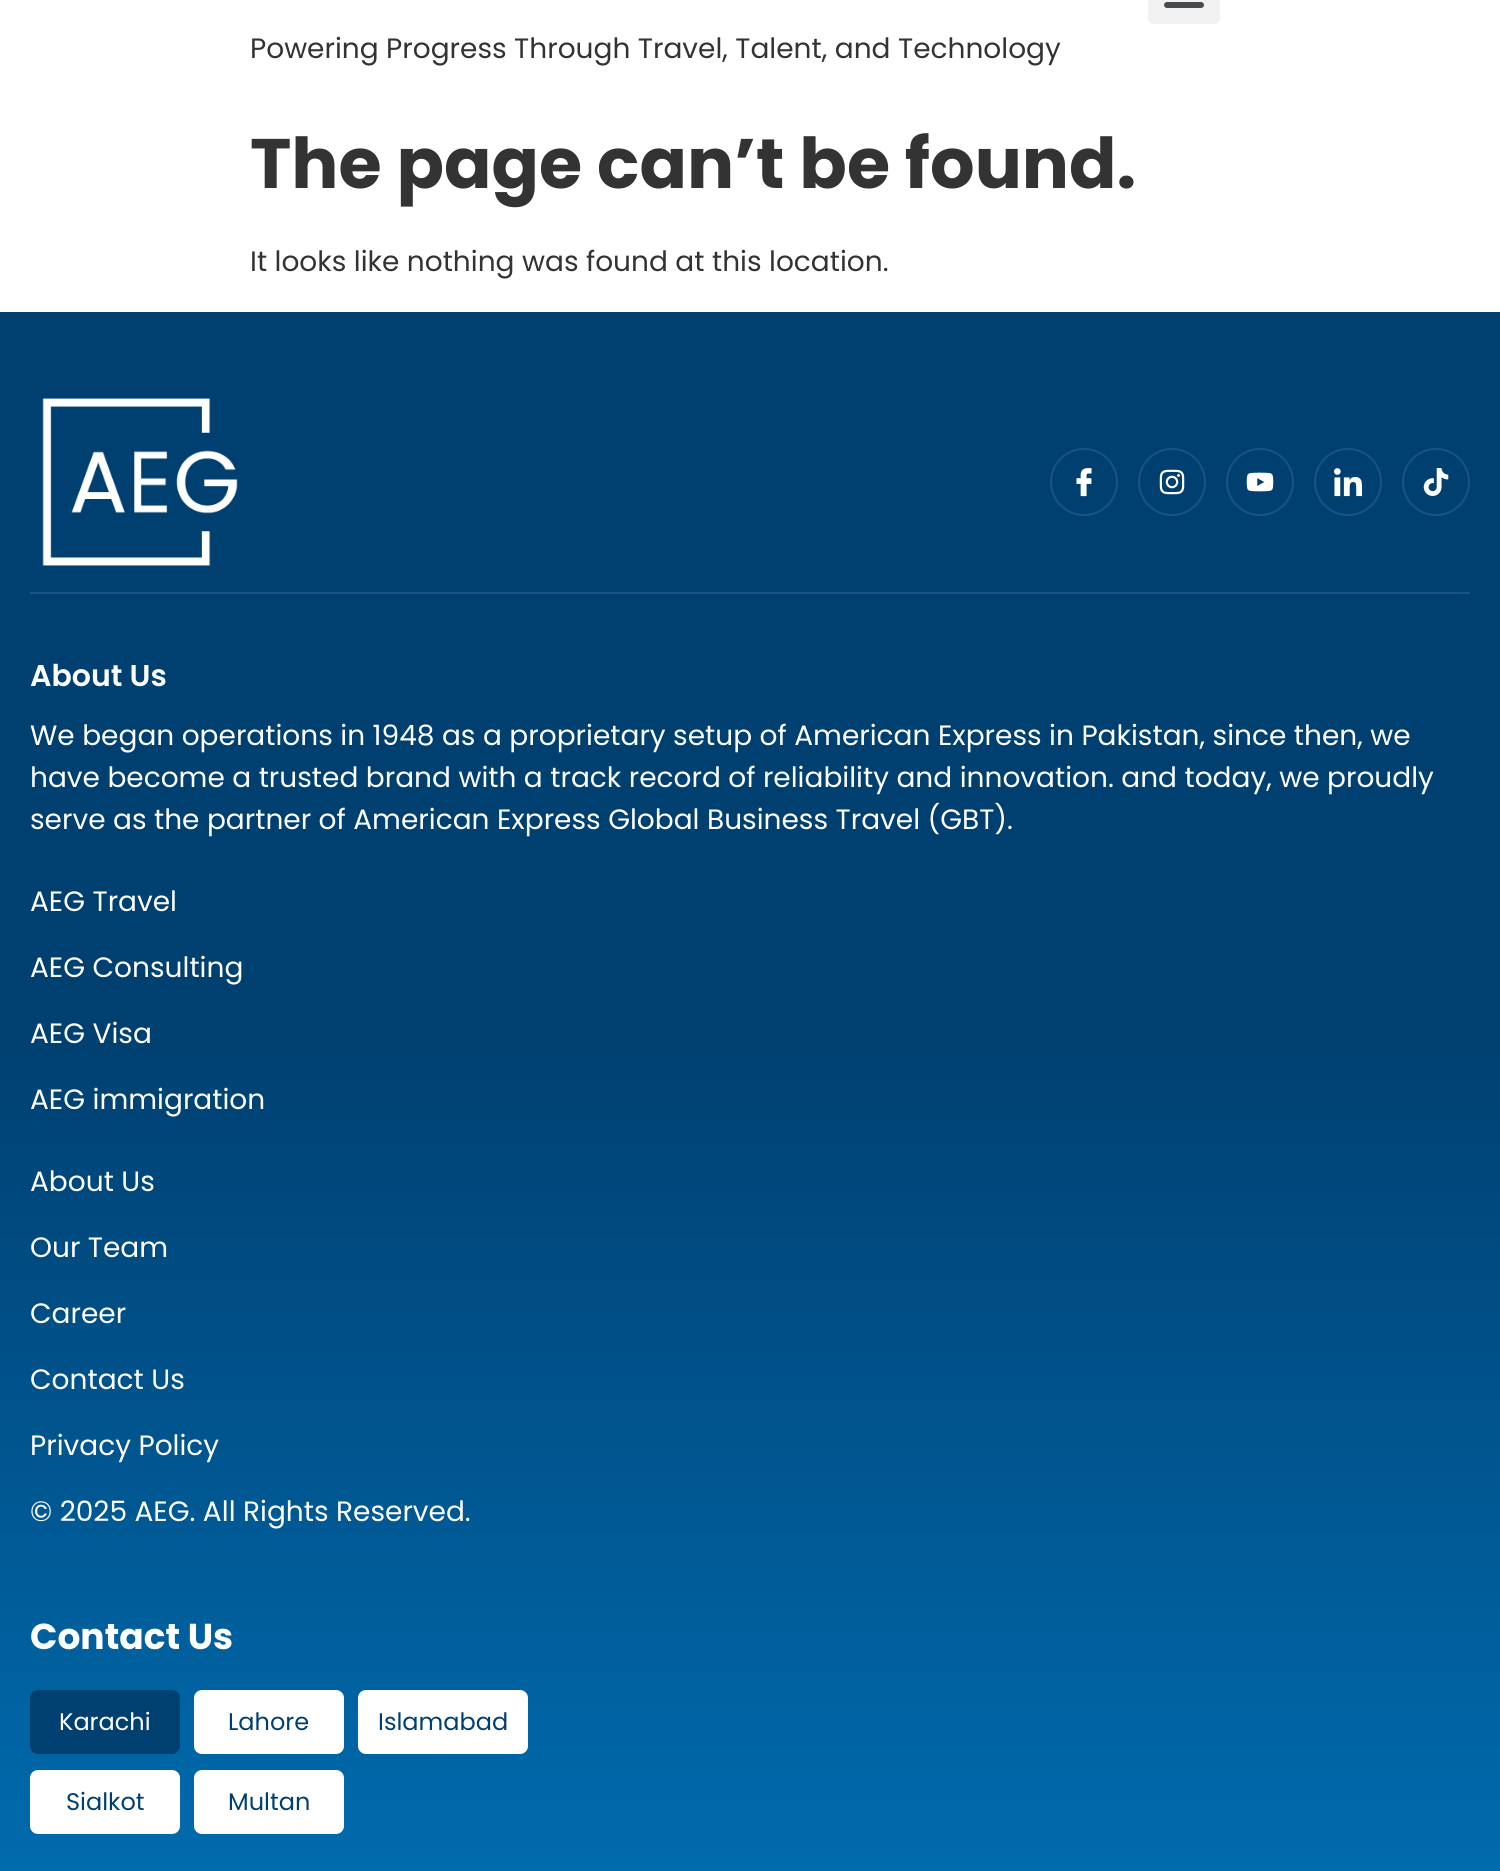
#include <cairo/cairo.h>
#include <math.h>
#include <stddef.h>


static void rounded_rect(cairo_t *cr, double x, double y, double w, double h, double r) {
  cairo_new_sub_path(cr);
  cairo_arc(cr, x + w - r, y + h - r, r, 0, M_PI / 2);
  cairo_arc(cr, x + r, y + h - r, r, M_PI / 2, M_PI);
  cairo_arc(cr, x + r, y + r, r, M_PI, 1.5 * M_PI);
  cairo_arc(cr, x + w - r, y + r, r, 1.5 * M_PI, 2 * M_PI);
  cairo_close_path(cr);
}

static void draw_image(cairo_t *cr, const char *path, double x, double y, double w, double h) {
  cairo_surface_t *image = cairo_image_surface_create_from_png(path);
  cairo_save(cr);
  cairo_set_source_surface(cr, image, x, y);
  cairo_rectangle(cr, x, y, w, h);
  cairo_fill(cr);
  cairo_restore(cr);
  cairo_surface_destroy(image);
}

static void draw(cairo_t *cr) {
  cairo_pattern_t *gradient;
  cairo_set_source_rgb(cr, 1, 1, 1);
  cairo_paint(cr);
  cairo_set_source_rgb(cr, 242 / 255.0, 242 / 255.0, 242 / 255.0);
  rounded_rect(cr, 1148, -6, 72, 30, 6);
  cairo_fill(cr);
  cairo_set_source_rgb(cr, 73 / 255.0, 76 / 255.0, 79 / 255.0);
  rounded_rect(cr, 1164, 2, 40, 6, 3);
  cairo_fill(cr);
  gradient = cairo_pattern_create_linear(750, 312, 750, 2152);
  cairo_pattern_add_color_stop_rgba(gradient, 0.39, 0, 64 / 255.0, 113 / 255.0, 1);
  cairo_pattern_add_color_stop_rgba(gradient, 1, 0, 121 / 255.0, 193 / 255.0, 1);
  cairo_set_source(cr, gradient);
  cairo_pattern_destroy(gradient);
  cairo_rectangle(cr, 0, 312, 1500, 1559);
  cairo_fill(cr);
  cairo_set_source_rgb(cr, 26 / 255.0, 83 / 255.0, 127 / 255.0);
  cairo_rectangle(cr, 30, 592, 1440, 2);
  cairo_fill(cr);
  draw_image(cr, "images/1.png", 42, 398, 196, 168);
  cairo_arc(cr, 1084, 482, 33, 0, 2 * M_PI);
  cairo_stroke(cr);
  draw_image(cr, "images/2.png", 1076, 468, 16, 29);
  cairo_arc(cr, 1172, 482, 33, 0, 2 * M_PI);
  cairo_stroke(cr);
  draw_image(cr, "images/3.png", 1159, 469, 26, 26);
  cairo_arc(cr, 1260, 482, 33, 0, 2 * M_PI);
  cairo_stroke(cr);
  draw_image(cr, "images/4.png", 1246, 472, 28, 20);
  cairo_arc(cr, 1348, 482, 33, 0, 2 * M_PI);
  cairo_stroke(cr);
  draw_image(cr, "images/5.png", 1334, 468, 28, 29);
  cairo_arc(cr, 1436, 482, 33, 0, 2 * M_PI);
  cairo_stroke(cr);
  draw_image(cr, "images/6.png", 1423, 468, 26, 28);
  cairo_set_source_rgb(cr, 0, 64 / 255.0, 113 / 255.0);
  rounded_rect(cr, 30, 1690, 150, 64, 8);
  cairo_fill(cr);
  cairo_set_source_rgb(cr, 1, 1, 1);
  rounded_rect(cr, 194, 1690, 150, 64, 8);
  cairo_fill(cr);
  rounded_rect(cr, 358, 1690, 170, 64, 8);
  cairo_fill(cr);
  rounded_rect(cr, 30, 1770, 150, 64, 8);
  cairo_fill(cr);
  rounded_rect(cr, 194, 1770, 150, 64, 8);
  cairo_fill(cr);
  cairo_select_font_face(cr, "Poppins", CAIRO_FONT_SLANT_NORMAL, CAIRO_FONT_WEIGHT_NORMAL);
  cairo_set_font_size(cr, 28);
  cairo_set_source_rgb(cr, 51 / 255.0, 51 / 255.0, 51 / 255.0);
  cairo_move_to(cr, 250, 58);
  cairo_show_text(cr, "Powering Progress Through Travel, Talent, and Technology");
  cairo_select_font_face(cr, "Poppins", CAIRO_FONT_SLANT_NORMAL, CAIRO_FONT_WEIGHT_BOLD);
  cairo_set_font_size(cr, 70);
  cairo_move_to(cr, 250, 188);
  cairo_show_text(cr, "The page can’t be found.");
  cairo_select_font_face(cr, "Poppins", CAIRO_FONT_SLANT_NORMAL, CAIRO_FONT_WEIGHT_NORMAL);
  cairo_set_font_size(cr, 28);
  cairo_move_to(cr, 250, 271);
  cairo_show_text(cr, "It looks like nothing was found at this location.");
  cairo_select_font_face(cr, "Poppins SemiBold", CAIRO_FONT_SLANT_NORMAL, CAIRO_FONT_WEIGHT_NORMAL);
  cairo_set_font_size(cr, 30);
  cairo_set_source_rgb(cr, 1, 1, 1);
  cairo_move_to(cr, 30, 686);
  cairo_show_text(cr, "About Us");
  cairo_select_font_face(cr, "Poppins", CAIRO_FONT_SLANT_NORMAL, CAIRO_FONT_WEIGHT_NORMAL);
  cairo_set_font_size(cr, 28);
  cairo_move_to(cr, 30, 745);
  cairo_show_text(cr, "We began operations in 1948 as a proprietary setup of American Express in Pakistan, since then, we");
  cairo_move_to(cr, 30, 787);
  cairo_show_text(cr, "have become a trusted brand with a track record of reliability and innovation. and today, we proudly");
  cairo_move_to(cr, 30, 829);
  cairo_show_text(cr, "serve as the partner of American Express Global Business Travel (GBT).");
  cairo_move_to(cr, 30, 911);
  cairo_show_text(cr, "AEG Travel");
  cairo_move_to(cr, 30, 977);
  cairo_show_text(cr, "AEG Consulting");
  cairo_move_to(cr, 30, 1043);
  cairo_show_text(cr, "AEG Visa");
  cairo_move_to(cr, 30, 1109);
  cairo_show_text(cr, "AEG immigration");
  cairo_move_to(cr, 30, 1191);
  cairo_show_text(cr, "About Us");
  cairo_move_to(cr, 30, 1257);
  cairo_show_text(cr, "Our Team");
  cairo_move_to(cr, 30, 1323);
  cairo_show_text(cr, "Career");
  cairo_move_to(cr, 30, 1389);
  cairo_show_text(cr, "Contact Us");
  cairo_move_to(cr, 30, 1455);
  cairo_show_text(cr, "Privacy Policy");
  cairo_move_to(cr, 30, 1521);
  cairo_show_text(cr, "© 2025 AEG. All Rights Reserved.");
  cairo_select_font_face(cr, "Poppins", CAIRO_FONT_SLANT_NORMAL, CAIRO_FONT_WEIGHT_BOLD);
  cairo_set_font_size(cr, 36);
  cairo_move_to(cr, 30, 1649);
  cairo_show_text(cr, "Contact Us");
  cairo_select_font_face(cr, "Poppins", CAIRO_FONT_SLANT_NORMAL, CAIRO_FONT_WEIGHT_NORMAL);
  cairo_set_font_size(cr, 24);
  cairo_move_to(cr, 59, 1730);
  cairo_show_text(cr, "Karachi");
  cairo_set_source_rgb(cr, 0, 64 / 255.0, 113 / 255.0);
  cairo_move_to(cr, 228, 1730);
  cairo_show_text(cr, "Lahore");
  cairo_move_to(cr, 378, 1730);
  cairo_show_text(cr, "Islamabad");
  cairo_move_to(cr, 66, 1810);
  cairo_show_text(cr, "Sialkot");
  cairo_move_to(cr, 228, 1810);
  cairo_show_text(cr, "Multan");
}

int main(void) {
  cairo_surface_t *surface = cairo_image_surface_create(CAIRO_FORMAT_RGB24, 1500, 1871);
  cairo_t *cr = cairo_create(surface);
  cairo_font_options_t *options = cairo_font_options_create();
  cairo_font_options_set_hint_metrics(options, CAIRO_HINT_METRICS_OFF);
  cairo_font_options_set_hint_style(options, CAIRO_HINT_STYLE_NONE);
  cairo_set_font_options(cr, options);
  cairo_set_miter_limit(cr, 4);
  draw(cr);
  cairo_surface_write_to_png(surface, "out.png");
  cairo_font_options_destroy(options);
  cairo_destroy(cr);
  cairo_surface_destroy(surface);
  return 0;
}
